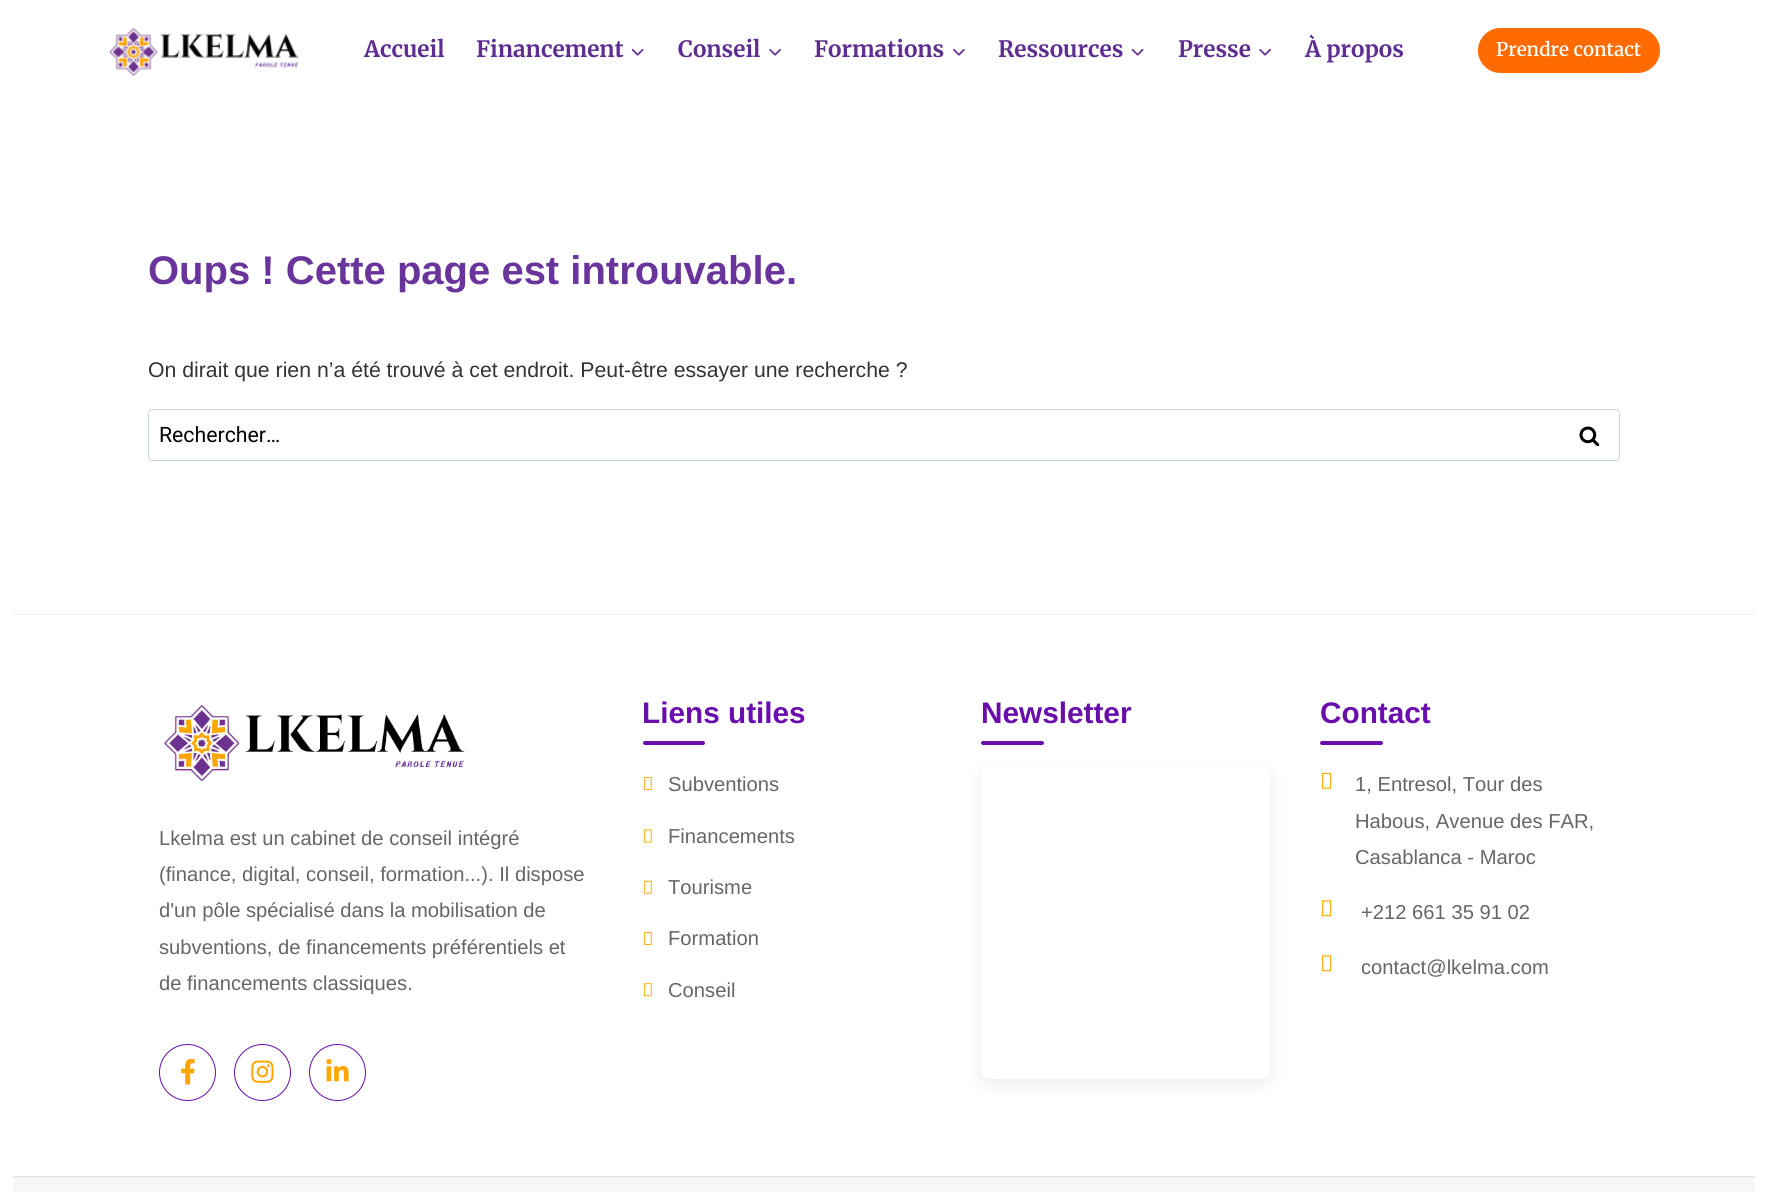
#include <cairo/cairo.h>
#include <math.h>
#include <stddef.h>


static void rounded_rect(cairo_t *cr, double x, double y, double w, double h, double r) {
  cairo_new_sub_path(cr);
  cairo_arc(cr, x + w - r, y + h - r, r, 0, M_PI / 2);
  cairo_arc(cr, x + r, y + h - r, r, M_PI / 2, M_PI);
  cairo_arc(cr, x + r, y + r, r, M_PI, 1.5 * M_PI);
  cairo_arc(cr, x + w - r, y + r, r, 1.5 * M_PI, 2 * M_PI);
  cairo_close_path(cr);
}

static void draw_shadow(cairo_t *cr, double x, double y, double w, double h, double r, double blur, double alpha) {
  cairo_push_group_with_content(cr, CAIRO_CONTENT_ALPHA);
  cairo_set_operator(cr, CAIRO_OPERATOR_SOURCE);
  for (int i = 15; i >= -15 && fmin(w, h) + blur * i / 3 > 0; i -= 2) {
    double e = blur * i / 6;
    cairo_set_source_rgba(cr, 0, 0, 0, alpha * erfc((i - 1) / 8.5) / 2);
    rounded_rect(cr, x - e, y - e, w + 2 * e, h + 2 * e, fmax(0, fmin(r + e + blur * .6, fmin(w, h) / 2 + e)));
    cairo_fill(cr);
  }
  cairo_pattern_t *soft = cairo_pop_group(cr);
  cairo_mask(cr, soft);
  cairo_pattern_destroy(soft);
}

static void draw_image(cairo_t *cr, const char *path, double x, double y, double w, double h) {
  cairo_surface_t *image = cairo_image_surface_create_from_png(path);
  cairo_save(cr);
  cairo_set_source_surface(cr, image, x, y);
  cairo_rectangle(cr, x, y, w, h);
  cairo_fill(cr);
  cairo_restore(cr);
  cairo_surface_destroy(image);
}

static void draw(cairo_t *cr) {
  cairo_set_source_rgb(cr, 1, 1, 1);
  cairo_paint(cr);
  draw_image(cr, "images/1.png", 109, 28, 190, 48);
  draw_image(cr, "images/2.png", 631, 48, 13, 8);
  draw_image(cr, "images/3.png", 769, 48, 12, 8);
  draw_image(cr, "images/4.png", 953, 48, 12, 8);
  draw_image(cr, "images/2.png", 1131, 48, 13, 8);
  draw_image(cr, "images/3.png", 1259, 48, 12, 8);
  cairo_set_source_rgb(cr, 1, 107 / 255.0, 0);
  rounded_rect(cr, 1478, 28, 182, 45, 22.5);
  cairo_fill(cr);
  rounded_rect(cr, 148.5, 409.5, 1471, 51, 3.5);
  cairo_set_source_rgb(cr, 203 / 255.0, 213 / 255.0, 224 / 255.0);
  cairo_set_line_width(cr, 1);
  cairo_stroke(cr);
  draw_image(cr, "images/5.png", 1579, 426, 21, 20);
  cairo_set_source_rgb(cr, 238 / 255.0, 238 / 255.0, 238 / 255.0);
  cairo_rectangle(cr, 13, 614, 1742, 1);
  cairo_fill(cr);
  draw_image(cr, "images/6.png", 164, 705, 301, 76);
  cairo_arc(cr, 187.5, 1072.5, 28, 0, 2 * M_PI);
  cairo_set_source_rgb(cr, 106 / 255.0, 13 / 255.0, 173 / 255.0);
  cairo_stroke(cr);
  draw_image(cr, "images/7.png", 181, 1058, 14, 27);
  cairo_arc(cr, 262.5, 1072.5, 28, 0, 2 * M_PI);
  cairo_stroke(cr);
  draw_image(cr, "images/8.png", 251, 1060, 23, 23);
  cairo_arc(cr, 337.5, 1072.5, 28, 0, 2 * M_PI);
  cairo_stroke(cr);
  draw_image(cr, "images/9.png", 326, 1058, 23, 24);
  rounded_rect(cr, 643, 741, 62, 4, 2);
  cairo_fill(cr);
  draw_image(cr, "images/10.png", 644, 777, 8, 13);
  draw_image(cr, "images/11.png", 644, 829, 8, 14);
  draw_image(cr, "images/12.png", 644, 880, 8, 14);
  draw_image(cr, "images/10.png", 644, 932, 8, 13);
  draw_image(cr, "images/13.png", 644, 983, 8, 14);
  cairo_save(cr);
  cairo_set_fill_rule(cr, CAIRO_FILL_RULE_EVEN_ODD);
  cairo_new_path(cr);
  cairo_move_to(cr, 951, 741);
  cairo_line_to(cr, 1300, 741);
  cairo_line_to(cr, 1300, 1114);
  cairo_line_to(cr, 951, 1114);
  cairo_close_path(cr);
  cairo_move_to(cr, 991, 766);
  cairo_line_to(cr, 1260, 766);
  cairo_curve_to(cr, 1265.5, 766, 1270, 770.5, 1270, 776);
  cairo_line_to(cr, 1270, 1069);
  cairo_curve_to(cr, 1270, 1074.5, 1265.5, 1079, 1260, 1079);
  cairo_line_to(cr, 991, 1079);
  cairo_curve_to(cr, 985.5, 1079, 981, 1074.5, 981, 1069);
  cairo_line_to(cr, 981, 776);
  cairo_curve_to(cr, 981, 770.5, 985.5, 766, 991, 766);
  cairo_close_path(cr);
  cairo_clip(cr);
  cairo_set_source_rgb(cr, 0, 0, 0);
  draw_shadow(cr, 981, 771, 289, 313, 10, 9.5, 0.08);
  cairo_restore(cr);
  rounded_rect(cr, 981, 741, 63, 4, 2);
  cairo_fill(cr);
  rounded_rect(cr, 1320, 741, 63, 4, 2);
  cairo_fill(cr);
  draw_image(cr, "images/14.png", 1322, 772, 10, 17);
  draw_image(cr, "images/15.png", 1322, 900, 10, 17);
  draw_image(cr, "images/15.png", 1322, 955, 10, 17);
  cairo_set_source_rgb(cr, 247 / 255.0, 247 / 255.0, 247 / 255.0);
  cairo_rectangle(cr, 13, 1177, 1742, 15);
  cairo_fill(cr);
  cairo_set_source_rgb(cr, 224 / 255.0, 224 / 255.0, 224 / 255.0);
  cairo_rectangle(cr, 13, 1176, 1742, 1);
  cairo_fill(cr);
  cairo_select_font_face(cr, "Merriweather", CAIRO_FONT_SLANT_NORMAL, CAIRO_FONT_WEIGHT_BOLD);
  cairo_set_font_size(cr, 22.5);
  cairo_set_source_rgb(cr, 94 / 255.0, 45 / 255.0, 145 / 255.0);
  cairo_move_to(cr, 364, 57);
  cairo_show_text(cr, "Accueil");
  cairo_move_to(cr, 476, 57);
  cairo_show_text(cr, "Financement");
  cairo_move_to(cr, 678, 57);
  cairo_show_text(cr, "Conseil");
  cairo_move_to(cr, 814, 57);
  cairo_show_text(cr, "Formations");
  cairo_move_to(cr, 998, 57);
  cairo_show_text(cr, "Ressources");
  cairo_move_to(cr, 1178, 57);
  cairo_show_text(cr, "Presse");
  cairo_move_to(cr, 1305, 57);
  cairo_show_text(cr, "À propos");
  cairo_select_font_face(cr, "Merriweather SemiBold", CAIRO_FONT_SLANT_NORMAL, CAIRO_FONT_WEIGHT_NORMAL);
  cairo_set_font_size(cr, 18.75);
  cairo_set_source_rgb(cr, 1, 1, 1);
  cairo_move_to(cr, 1496, 56);
  cairo_show_text(cr, "Prendre contact");
  cairo_select_font_face(cr, "Liberation Sans", CAIRO_FONT_SLANT_NORMAL, CAIRO_FONT_WEIGHT_BOLD);
  cairo_set_font_size(cr, 40);
  cairo_set_source_rgb(cr, 105 / 255.0, 53 / 255.0, 157 / 255.0);
  cairo_move_to(cr, 148, 284);
  cairo_show_text(cr, "Oups ! Cette page est introuvable.");
  cairo_select_font_face(cr, "Liberation Sans", CAIRO_FONT_SLANT_NORMAL, CAIRO_FONT_WEIGHT_NORMAL);
  cairo_set_font_size(cr, 21.25);
  cairo_set_source_rgb(cr, 51 / 255.0, 51 / 255.0, 51 / 255.0);
  cairo_move_to(cr, 148, 377);
  cairo_show_text(cr, "On dirait que rien n’a été trouvé à cet endroit. Peut-être essayer une recherche ?");
  cairo_select_font_face(cr, "Roboto", CAIRO_FONT_SLANT_NORMAL, CAIRO_FONT_WEIGHT_NORMAL);
  cairo_set_source_rgb(cr, 0, 0, 0);
  cairo_move_to(cr, 159, 442);
  cairo_show_text(cr, "Rechercher…");
  cairo_select_font_face(cr, "Liberation Sans", CAIRO_FONT_SLANT_NORMAL, CAIRO_FONT_WEIGHT_NORMAL);
  cairo_set_font_size(cr, 20.2);
  cairo_set_source_rgb(cr, 102 / 255.0, 102 / 255.0, 102 / 255.0);
  cairo_move_to(cr, 159, 845);
  cairo_show_text(cr, "Lkelma est un cabinet de conseil intégré");
  cairo_move_to(cr, 159, 881);
  cairo_show_text(cr, "(finance, digital, conseil, formation...). Il dispose");
  cairo_move_to(cr, 159, 917);
  cairo_show_text(cr, "d'un pôle spécialisé dans la mobilisation de");
  cairo_move_to(cr, 159, 954);
  cairo_show_text(cr, "subventions, de financements préférentiels et");
  cairo_move_to(cr, 159, 990);
  cairo_show_text(cr, "de financements classiques.");
  cairo_select_font_face(cr, "Liberation Sans", CAIRO_FONT_SLANT_NORMAL, CAIRO_FONT_WEIGHT_BOLD);
  cairo_set_font_size(cr, 29.75);
  cairo_set_source_rgb(cr, 106 / 255.0, 13 / 255.0, 173 / 255.0);
  cairo_move_to(cr, 642, 723);
  cairo_show_text(cr, "Liens utiles");
  cairo_select_font_face(cr, "Liberation Sans", CAIRO_FONT_SLANT_NORMAL, CAIRO_FONT_WEIGHT_NORMAL);
  cairo_set_font_size(cr, 20.2);
  cairo_set_source_rgb(cr, 102 / 255.0, 102 / 255.0, 102 / 255.0);
  cairo_move_to(cr, 668, 791);
  cairo_show_text(cr, "Subventions");
  cairo_move_to(cr, 668, 843);
  cairo_show_text(cr, "Financements");
  cairo_move_to(cr, 668, 894);
  cairo_show_text(cr, "Tourisme");
  cairo_move_to(cr, 668, 945);
  cairo_show_text(cr, "Formation");
  cairo_move_to(cr, 668, 997);
  cairo_show_text(cr, "Conseil");
  cairo_select_font_face(cr, "Liberation Sans", CAIRO_FONT_SLANT_NORMAL, CAIRO_FONT_WEIGHT_BOLD);
  cairo_set_font_size(cr, 29.75);
  cairo_set_source_rgb(cr, 106 / 255.0, 13 / 255.0, 173 / 255.0);
  cairo_move_to(cr, 981, 723);
  cairo_show_text(cr, "Newsletter");
  cairo_move_to(cr, 1320, 723);
  cairo_show_text(cr, "Contact");
  cairo_select_font_face(cr, "Liberation Sans", CAIRO_FONT_SLANT_NORMAL, CAIRO_FONT_WEIGHT_NORMAL);
  cairo_set_font_size(cr, 20.2);
  cairo_set_source_rgb(cr, 102 / 255.0, 102 / 255.0, 102 / 255.0);
  cairo_move_to(cr, 1355, 791);
  cairo_show_text(cr, "1, Entresol, Tour des");
  cairo_move_to(cr, 1355, 828);
  cairo_show_text(cr, "Habous, Avenue des FAR,");
  cairo_move_to(cr, 1355, 864);
  cairo_show_text(cr, "Casablanca - Maroc");
  cairo_move_to(cr, 1361, 919);
  cairo_show_text(cr, "+212 661 35 91 02");
  cairo_move_to(cr, 1361, 974);
  cairo_show_text(cr, "contact@lkelma.com");
}

int main(void) {
  cairo_surface_t *surface = cairo_image_surface_create(CAIRO_FORMAT_RGB24, 1767, 1192);
  cairo_t *cr = cairo_create(surface);
  cairo_font_options_t *options = cairo_font_options_create();
  cairo_font_options_set_hint_metrics(options, CAIRO_HINT_METRICS_OFF);
  cairo_font_options_set_hint_style(options, CAIRO_HINT_STYLE_NONE);
  cairo_set_font_options(cr, options);
  cairo_set_miter_limit(cr, 4);
  draw(cr);
  cairo_surface_write_to_png(surface, "out.png");
  cairo_font_options_destroy(options);
  cairo_destroy(cr);
  cairo_surface_destroy(surface);
  return 0;
}
